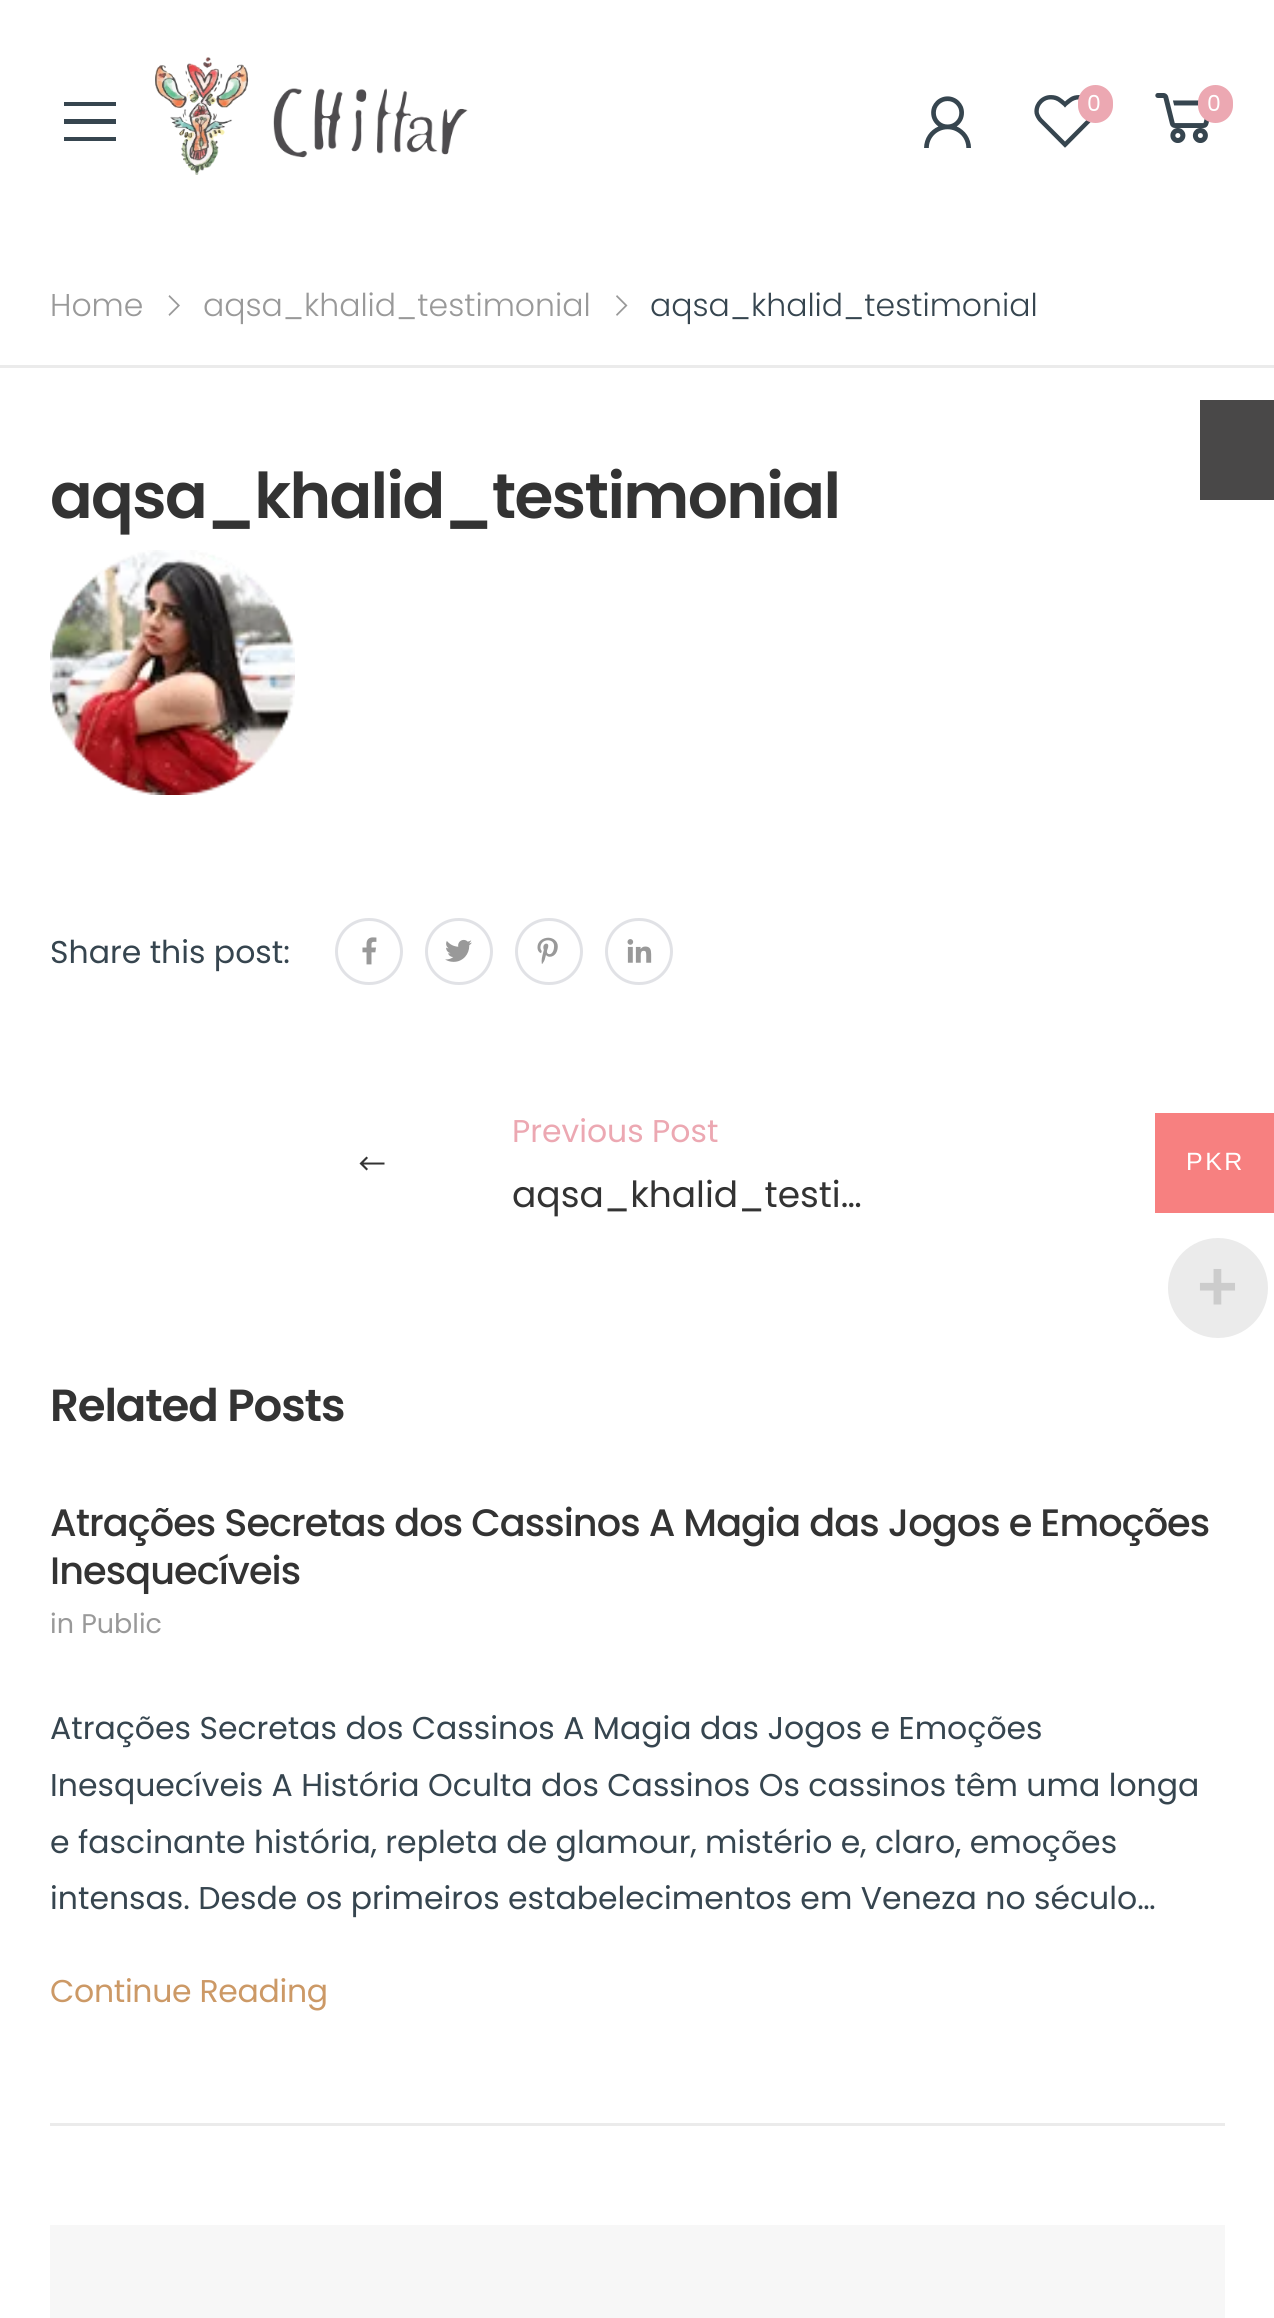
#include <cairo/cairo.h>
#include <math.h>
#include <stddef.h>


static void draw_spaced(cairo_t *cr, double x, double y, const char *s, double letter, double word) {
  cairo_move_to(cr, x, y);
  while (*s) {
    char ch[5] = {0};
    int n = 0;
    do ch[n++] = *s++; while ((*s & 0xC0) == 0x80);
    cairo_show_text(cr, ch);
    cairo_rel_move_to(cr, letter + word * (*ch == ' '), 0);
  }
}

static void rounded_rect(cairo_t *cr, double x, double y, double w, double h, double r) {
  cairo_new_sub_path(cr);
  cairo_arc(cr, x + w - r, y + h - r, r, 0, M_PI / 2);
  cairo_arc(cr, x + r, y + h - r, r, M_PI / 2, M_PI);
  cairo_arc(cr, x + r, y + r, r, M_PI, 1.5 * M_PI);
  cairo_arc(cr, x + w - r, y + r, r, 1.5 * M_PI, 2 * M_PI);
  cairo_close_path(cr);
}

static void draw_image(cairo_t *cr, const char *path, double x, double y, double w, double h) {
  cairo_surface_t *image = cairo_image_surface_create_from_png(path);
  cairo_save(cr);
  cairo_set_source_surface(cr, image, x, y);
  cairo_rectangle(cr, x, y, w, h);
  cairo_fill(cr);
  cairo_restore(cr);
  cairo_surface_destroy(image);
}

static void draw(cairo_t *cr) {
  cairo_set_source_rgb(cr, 1, 1, 1);
  cairo_paint(cr);
  cairo_set_source_rgb(cr, 54 / 255.0, 69 / 255.0, 79 / 255.0);
  cairo_new_path(cr);
  cairo_move_to(cr, 64, 102);
  cairo_line_to(cr, 116, 102);
  cairo_line_to(cr, 116, 106);
  cairo_line_to(cr, 64, 106);
  cairo_close_path(cr);
  cairo_move_to(cr, 64, 119);
  cairo_line_to(cr, 116, 119);
  cairo_line_to(cr, 116, 124);
  cairo_line_to(cr, 64, 124);
  cairo_close_path(cr);
  cairo_move_to(cr, 64, 137);
  cairo_line_to(cr, 116, 137);
  cairo_line_to(cr, 116, 141);
  cairo_line_to(cr, 64, 141);
  cairo_close_path(cr);
  cairo_fill(cr);
  draw_image(cr, "images/1.png", 155, 57, 313, 118);
  draw_image(cr, "images/2.png", 924, 96, 47, 52);
  draw_image(cr, "images/3.png", 1034, 95, 57, 53);
  cairo_set_source_rgb(cr, 236 / 255.0, 168 / 255.0, 178 / 255.0);
  rounded_rect(cr, 1078, 85, 35, 38, 17.5);
  cairo_fill(cr);
  draw_image(cr, "images/4.png", 1155, 93, 55, 50);
  rounded_rect(cr, 1198, 85, 35, 38, 17.5);
  cairo_fill(cr);
  cairo_set_source_rgb(cr, 235 / 255.0, 235 / 255.0, 235 / 255.0);
  cairo_rectangle(cr, 0, 365, 1274, 3);
  cairo_fill(cr);
  cairo_set_source_rgb(cr, 153 / 255.0, 153 / 255.0, 153 / 255.0);
  cairo_new_path(cr);
  cairo_move_to(cr, 169.5, 295);
  cairo_line_to(cr, 180, 305.5);
  cairo_line_to(cr, 169.5, 316);
  cairo_line_to(cr, 168.5, 314.5);
  cairo_line_to(cr, 177.5, 305.5);
  cairo_line_to(cr, 168.5, 296.5);
  cairo_close_path(cr);
  cairo_fill(cr);
  cairo_new_path(cr);
  cairo_move_to(cr, 617, 295);
  cairo_line_to(cr, 627.5, 305.5);
  cairo_line_to(cr, 617, 316);
  cairo_line_to(cr, 616, 314.5);
  cairo_line_to(cr, 625, 305.5);
  cairo_line_to(cr, 616, 296.5);
  cairo_close_path(cr);
  cairo_fill(cr);
  cairo_set_source_rgb(cr, 73 / 255.0, 72 / 255.0, 72 / 255.0);
  cairo_rectangle(cr, 1200, 400, 74, 100);
  cairo_fill(cr);
  draw_image(cr, "images/5.png", 50, 550, 245, 245);
  rounded_rect(cr, 336.5, 919.5, 65, 64, 32);
  cairo_set_source_rgb(cr, 225 / 255.0, 226 / 255.0, 230 / 255.0);
  cairo_set_line_width(cr, 3);
  cairo_stroke(cr);
  draw_image(cr, "images/6.png", 362, 937, 15, 28);
  rounded_rect(cr, 426.5, 919.5, 65, 64, 32);
  cairo_stroke(cr);
  draw_image(cr, "images/7.png", 445, 939, 27, 23);
  rounded_rect(cr, 516.5, 919.5, 65, 64, 32);
  cairo_stroke(cr);
  draw_image(cr, "images/8.png", 537, 937, 21, 27);
  rounded_rect(cr, 606.5, 919.5, 65, 64, 32);
  cairo_stroke(cr);
  draw_image(cr, "images/9.png", 627, 939, 25, 24);
  cairo_set_source_rgb(cr, 51 / 255.0, 51 / 255.0, 51 / 255.0);
  cairo_new_path(cr);
  cairo_move_to(cr, 366.5, 1156.5);
  cairo_line_to(cr, 368, 1158);
  cairo_line_to(cr, 363.5, 1162.5);
  cairo_line_to(cr, 384.5, 1162.5);
  cairo_line_to(cr, 384.5, 1164.5);
  cairo_line_to(cr, 363.5, 1164.5);
  cairo_line_to(cr, 368, 1169);
  cairo_line_to(cr, 366.5, 1170.5);
  cairo_line_to(cr, 359.5, 1163.5);
  cairo_close_path(cr);
  cairo_fill(cr);
  cairo_set_source_rgb(cr, 235 / 255.0, 235 / 255.0, 235 / 255.0);
  cairo_rectangle(cr, 50, 2123, 1175, 3);
  cairo_fill(cr);
  cairo_set_source_rgb(cr, 247 / 255.0, 247 / 255.0, 247 / 255.0);
  cairo_rectangle(cr, 50, 2225, 1175, 93);
  cairo_fill(cr);
  cairo_set_source_rgb(cr, 247 / 255.0, 128 / 255.0, 128 / 255.0);
  cairo_rectangle(cr, 1155, 1113, 119, 100);
  cairo_fill(cr);
  cairo_set_source_rgb(cr, 235 / 255.0, 235 / 255.0, 235 / 255.0);
  cairo_arc(cr, 1218, 1288, 50, 0, 2 * M_PI);
  cairo_fill(cr);
  cairo_select_font_face(cr, "Poppins", CAIRO_FONT_SLANT_NORMAL, CAIRO_FONT_WEIGHT_NORMAL);
  cairo_set_font_size(cr, 22);
  cairo_set_source_rgb(cr, 1, 1, 1);
  cairo_move_to(cr, 1087, 111);
  cairo_show_text(cr, "0");
  cairo_move_to(cr, 1207, 111);
  cairo_show_text(cr, "0");
  cairo_select_font_face(cr, "Poppins Light", CAIRO_FONT_SLANT_NORMAL, CAIRO_FONT_WEIGHT_NORMAL);
  cairo_set_font_size(cr, 31.5);
  cairo_set_source_rgb(cr, 153 / 255.0, 153 / 255.0, 153 / 255.0);
  cairo_move_to(cr, 50, 316);
  cairo_show_text(cr, "Home");
  cairo_move_to(cr, 203, 316);
  cairo_show_text(cr, "aqsa_khalid_testimonial");
  cairo_set_source_rgb(cr, 54 / 255.0, 69 / 255.0, 79 / 255.0);
  cairo_move_to(cr, 650, 316);
  cairo_show_text(cr, "aqsa_khalid_testimonial");
  cairo_select_font_face(cr, "Poppins SemiBold", CAIRO_FONT_SLANT_NORMAL, CAIRO_FONT_WEIGHT_NORMAL);
  cairo_set_font_size(cr, 63);
  cairo_set_source_rgb(cr, 51 / 255.0, 51 / 255.0, 51 / 255.0);
  draw_spaced(cr, 50, 518, "aqsa_khalid_testimonial", -1.6, 0);
  cairo_select_font_face(cr, "Poppins", CAIRO_FONT_SLANT_NORMAL, CAIRO_FONT_WEIGHT_NORMAL);
  cairo_set_font_size(cr, 31.5);
  cairo_set_source_rgb(cr, 54 / 255.0, 69 / 255.0, 79 / 255.0);
  cairo_move_to(cr, 50, 963);
  cairo_show_text(cr, "Share this post:");
  cairo_set_source_rgb(cr, 236 / 255.0, 168 / 255.0, 178 / 255.0);
  cairo_move_to(cr, 512, 1142);
  cairo_show_text(cr, "Previous Post");
  cairo_set_font_size(cr, 36);
  cairo_set_source_rgb(cr, 51 / 255.0, 51 / 255.0, 51 / 255.0);
  cairo_move_to(cr, 512, 1207);
  cairo_show_text(cr, "aqsa_khalid_testi…");
  cairo_select_font_face(cr, "Poppins SemiBold", CAIRO_FONT_SLANT_NORMAL, CAIRO_FONT_WEIGHT_NORMAL);
  cairo_set_font_size(cr, 45);
  draw_spaced(cr, 50, 1421, "Related Posts", -1.1, 0);
  cairo_select_font_face(cr, "Poppins Medium", CAIRO_FONT_SLANT_NORMAL, CAIRO_FONT_WEIGHT_NORMAL);
  cairo_set_font_size(cr, 38.25);
  draw_spaced(cr, 50, 1536, "Atrações Secretas dos Cassinos A Magia das Jogos e Emoções", -0.95, 0);
  draw_spaced(cr, 50, 1584, "Inesquecíveis", -0.95, 0);
  cairo_select_font_face(cr, "Poppins", CAIRO_FONT_SLANT_NORMAL, CAIRO_FONT_WEIGHT_NORMAL);
  cairo_set_font_size(cr, 27);
  cairo_set_source_rgb(cr, 153 / 255.0, 153 / 255.0, 153 / 255.0);
  cairo_move_to(cr, 50, 1633);
  cairo_show_text(cr, "in Public");
  cairo_set_font_size(cr, 31.5);
  cairo_set_source_rgb(cr, 54 / 255.0, 69 / 255.0, 79 / 255.0);
  cairo_move_to(cr, 50, 1739);
  cairo_show_text(cr, "Atrações Secretas dos Cassinos A Magia das Jogos e Emoções");
  cairo_move_to(cr, 50, 1796);
  cairo_show_text(cr, "Inesquecíveis A História Oculta dos Cassinos Os cassinos têm uma longa");
  cairo_move_to(cr, 50, 1853);
  cairo_show_text(cr, "e fascinante história, repleta de glamour, mistério e, claro, emoções");
  cairo_move_to(cr, 50, 1909);
  cairo_show_text(cr, "intensas. Desde os primeiros estabelecimentos em Veneza no século…");
  cairo_set_source_rgb(cr, 204 / 255.0, 153 / 255.0, 102 / 255.0);
  draw_spaced(cr, 50, 2002, "Continue Reading", -0.3, 0);
  cairo_select_font_face(cr, "Liberation Sans", CAIRO_FONT_SLANT_NORMAL, CAIRO_FONT_WEIGHT_NORMAL);
  cairo_set_font_size(cr, 25);
  cairo_set_source_rgb(cr, 1, 1, 1);
  draw_spaced(cr, 1186, 1170, "PKR", 2.5, 0);
  cairo_select_font_face(cr, "Liberation Sans", CAIRO_FONT_SLANT_NORMAL, CAIRO_FONT_WEIGHT_BOLD);
  cairo_set_font_size(cr, 70);
  cairo_set_source_rgb(cr, 204 / 255.0, 204 / 255.0, 204 / 255.0);
  cairo_move_to(cr, 1197, 1310);
  cairo_show_text(cr, "+");
}

int main(void) {
  cairo_surface_t *surface = cairo_image_surface_create(CAIRO_FORMAT_RGB24, 1274, 2318);
  cairo_t *cr = cairo_create(surface);
  cairo_font_options_t *options = cairo_font_options_create();
  cairo_font_options_set_hint_metrics(options, CAIRO_HINT_METRICS_OFF);
  cairo_font_options_set_hint_style(options, CAIRO_HINT_STYLE_NONE);
  cairo_set_font_options(cr, options);
  cairo_set_miter_limit(cr, 4);
  draw(cr);
  cairo_surface_write_to_png(surface, "out.png");
  cairo_font_options_destroy(options);
  cairo_destroy(cr);
  cairo_surface_destroy(surface);
  return 0;
}
